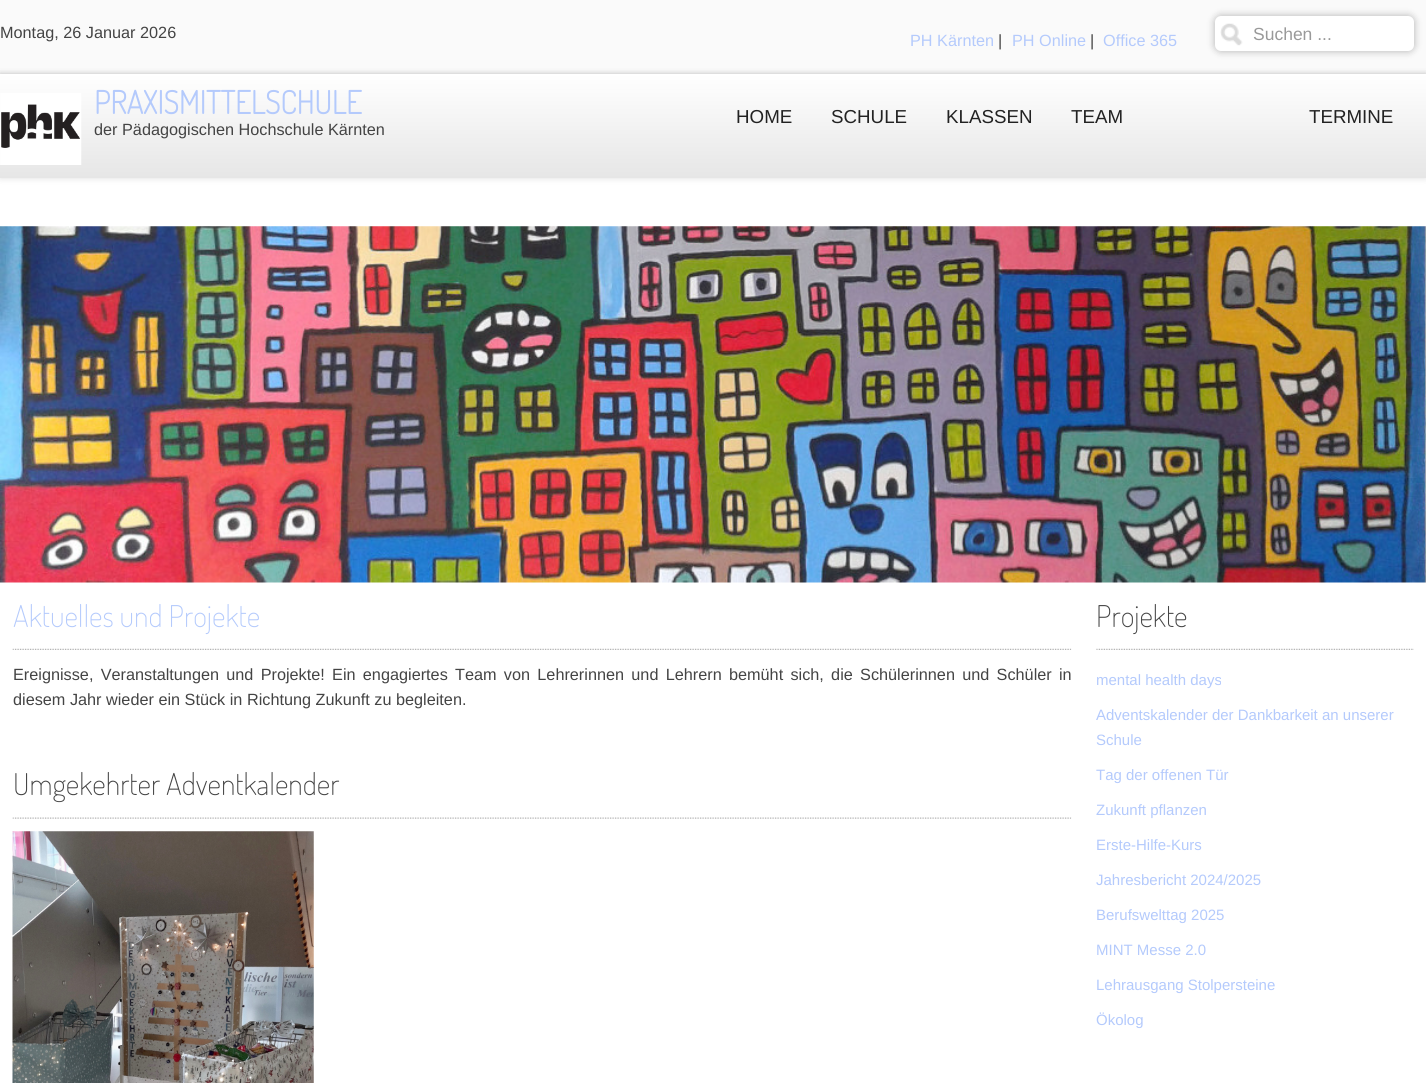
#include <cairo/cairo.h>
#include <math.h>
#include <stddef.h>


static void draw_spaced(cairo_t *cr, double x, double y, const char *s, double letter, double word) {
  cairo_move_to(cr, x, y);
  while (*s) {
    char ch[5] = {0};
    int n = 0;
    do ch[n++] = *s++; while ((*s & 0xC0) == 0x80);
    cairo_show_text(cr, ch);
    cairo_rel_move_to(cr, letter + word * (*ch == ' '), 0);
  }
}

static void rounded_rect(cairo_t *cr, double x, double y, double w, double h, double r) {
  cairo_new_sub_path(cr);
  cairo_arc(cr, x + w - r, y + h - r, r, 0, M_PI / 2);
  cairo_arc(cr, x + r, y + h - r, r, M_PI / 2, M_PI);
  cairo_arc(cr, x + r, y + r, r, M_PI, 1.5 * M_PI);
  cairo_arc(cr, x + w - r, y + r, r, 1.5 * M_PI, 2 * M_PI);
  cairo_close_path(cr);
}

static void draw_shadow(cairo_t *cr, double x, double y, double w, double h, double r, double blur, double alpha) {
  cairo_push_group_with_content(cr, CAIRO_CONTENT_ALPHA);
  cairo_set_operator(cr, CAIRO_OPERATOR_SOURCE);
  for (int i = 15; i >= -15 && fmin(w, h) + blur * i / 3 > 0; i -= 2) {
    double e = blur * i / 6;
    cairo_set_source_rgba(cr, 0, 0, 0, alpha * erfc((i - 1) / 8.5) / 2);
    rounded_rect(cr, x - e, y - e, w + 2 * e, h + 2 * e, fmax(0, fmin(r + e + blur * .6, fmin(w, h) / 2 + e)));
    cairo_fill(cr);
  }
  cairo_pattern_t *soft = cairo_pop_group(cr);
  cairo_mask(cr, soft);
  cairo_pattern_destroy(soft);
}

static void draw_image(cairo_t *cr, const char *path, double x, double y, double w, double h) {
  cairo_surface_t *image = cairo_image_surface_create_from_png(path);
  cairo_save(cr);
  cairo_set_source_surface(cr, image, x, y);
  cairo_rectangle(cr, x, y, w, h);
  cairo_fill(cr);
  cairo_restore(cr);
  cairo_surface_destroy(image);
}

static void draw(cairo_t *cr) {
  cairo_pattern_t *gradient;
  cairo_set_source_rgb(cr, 250 / 255.0, 250 / 255.0, 250 / 255.0);
  cairo_paint(cr);
  cairo_set_source_rgb(cr, 0, 0, 0);
  draw_shadow(cr, 1215, 16, 199, 35, 6, 4, 0.3);
  cairo_set_source_rgb(cr, 1, 1, 1);
  rounded_rect(cr, 1215, 16, 199, 35, 6);
  cairo_fill(cr);
  draw_image(cr, "images/1.png", 1220, 23, 23, 23);
  cairo_set_source_rgb(cr, 0, 0, 0);
  draw_shadow(cr, 0, 74, 1426, 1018, 0, 3, 0.2);
  cairo_set_source_rgb(cr, 1, 1, 1);
  cairo_rectangle(cr, 0, 178, 1426, 905);
  cairo_fill(cr);
  cairo_set_source_rgb(cr, 0, 0, 0);
  draw_shadow(cr, 0, 75, 1426, 104, 0, 3, 0.1);
  gradient = cairo_pattern_create_linear(713, 74, 713, 178);
  cairo_pattern_add_color_stop_rgba(gradient, 0, 1, 1, 1, 1);
  cairo_pattern_add_color_stop_rgba(gradient, 1, 230 / 255.0, 230 / 255.0, 230 / 255.0, 1);
  cairo_set_source(cr, gradient);
  cairo_pattern_destroy(gradient);
  cairo_rectangle(cr, 0, 74, 1426, 104);
  cairo_fill(cr);
  draw_image(cr, "images/2.png", 0, 93, 82, 72);
  draw_image(cr, "images/3.png", 0, 226, 1426, 357);
  draw_image(cr, "images/4.png", 12, 648, 1060, 2);
  draw_image(cr, "images/5.png", 12, 817, 1060, 2);
  draw_image(cr, "images/6.png", 12, 831, 302, 252);
  draw_image(cr, "images/7.png", 1096, 648, 318, 2);
  cairo_select_font_face(cr, "Liberation Sans", CAIRO_FONT_SLANT_NORMAL, CAIRO_FONT_WEIGHT_NORMAL);
  cairo_set_font_size(cr, 16.25);
  cairo_set_source_rgb(cr, 68 / 255.0, 68 / 255.0, 68 / 255.0);
  cairo_move_to(cr, 0, 38);
  cairo_show_text(cr, "Montag, 26 Januar 2026");
  cairo_set_source_rgb(cr, 180 / 255.0, 202 / 255.0, 252 / 255.0);
  cairo_move_to(cr, 910, 46);
  cairo_show_text(cr, "PH Kärnten");
  cairo_set_source_rgb(cr, 68 / 255.0, 68 / 255.0, 68 / 255.0);
  cairo_move_to(cr, 998, 46);
  cairo_show_text(cr, "|");
  cairo_set_source_rgb(cr, 180 / 255.0, 202 / 255.0, 252 / 255.0);
  cairo_move_to(cr, 1012, 46);
  cairo_show_text(cr, "PH Online");
  cairo_set_source_rgb(cr, 68 / 255.0, 68 / 255.0, 68 / 255.0);
  cairo_move_to(cr, 1090, 46);
  cairo_show_text(cr, "|");
  cairo_set_source_rgb(cr, 180 / 255.0, 202 / 255.0, 252 / 255.0);
  cairo_move_to(cr, 1103, 46);
  cairo_show_text(cr, "Office 365");
  cairo_set_font_size(cr, 17.5);
  cairo_set_source_rgb(cr, 153 / 255.0, 153 / 255.0, 153 / 255.0);
  cairo_move_to(cr, 1253, 40);
  cairo_show_text(cr, "Suchen ...");
  cairo_select_font_face(cr, "Dosis", CAIRO_FONT_SLANT_NORMAL, CAIRO_FONT_WEIGHT_BOLD);
  cairo_set_font_size(cr, 31.75);
  cairo_set_source_rgb(cr, 180 / 255.0, 202 / 255.0, 252 / 255.0);
  cairo_move_to(cr, 94, 114);
  cairo_show_text(cr, "PRAXISMITTELSCHULE");
  cairo_select_font_face(cr, "Liberation Sans", CAIRO_FONT_SLANT_NORMAL, CAIRO_FONT_WEIGHT_NORMAL);
  cairo_set_font_size(cr, 16.25);
  cairo_set_source_rgb(cr, 68 / 255.0, 68 / 255.0, 68 / 255.0);
  cairo_move_to(cr, 94, 135);
  cairo_show_text(cr, "der Pädagogischen Hochschule Kärnten");
  cairo_set_font_size(cr, 18.75);
  cairo_set_source_rgb(cr, 34 / 255.0, 34 / 255.0, 34 / 255.0);
  cairo_move_to(cr, 736, 123);
  cairo_show_text(cr, "HOME");
  cairo_move_to(cr, 831, 123);
  cairo_show_text(cr, "SCHULE");
  cairo_move_to(cr, 946, 123);
  cairo_show_text(cr, "KLASSEN");
  cairo_move_to(cr, 1071, 123);
  cairo_show_text(cr, "TEAM");
  cairo_move_to(cr, 1309, 123);
  cairo_show_text(cr, "TERMINE");
  cairo_select_font_face(cr, "Dosis ExtraLight", CAIRO_FONT_SLANT_NORMAL, CAIRO_FONT_WEIGHT_NORMAL);
  cairo_set_font_size(cr, 30);
  cairo_set_source_rgb(cr, 180 / 255.0, 202 / 255.0, 252 / 255.0);
  cairo_move_to(cr, 13, 627);
  cairo_show_text(cr, "Aktuelles und Projekte");
  cairo_select_font_face(cr, "Liberation Sans", CAIRO_FONT_SLANT_NORMAL, CAIRO_FONT_WEIGHT_NORMAL);
  cairo_set_font_size(cr, 16.25);
  cairo_set_source_rgb(cr, 68 / 255.0, 68 / 255.0, 68 / 255.0);
  draw_spaced(cr, 13, 680, "Ereignisse, Veranstaltungen und Projekte! Ein engagiertes Team von Lehrerinnen und Lehrern bemüht sich, die Schülerinnen und Schüler in", 0, 2.75);
  cairo_move_to(cr, 13, 705);
  cairo_show_text(cr, "diesem Jahr wieder ein Stück in Richtung Zukunft zu begleiten.");
  cairo_select_font_face(cr, "Dosis ExtraLight", CAIRO_FONT_SLANT_NORMAL, CAIRO_FONT_WEIGHT_NORMAL);
  cairo_set_font_size(cr, 30);
  cairo_move_to(cr, 13, 795);
  cairo_show_text(cr, "Umgekehrter Adventkalender");
  cairo_move_to(cr, 1096, 627);
  cairo_show_text(cr, "Projekte");
  cairo_select_font_face(cr, "Liberation Sans", CAIRO_FONT_SLANT_NORMAL, CAIRO_FONT_WEIGHT_NORMAL);
  cairo_set_font_size(cr, 15);
  cairo_set_source_rgb(cr, 180 / 255.0, 202 / 255.0, 252 / 255.0);
  cairo_move_to(cr, 1096, 685);
  cairo_show_text(cr, "mental health days");
  cairo_move_to(cr, 1096, 720);
  cairo_show_text(cr, "Adventskalender der Dankbarkeit an unserer");
  cairo_move_to(cr, 1096, 745);
  cairo_show_text(cr, "Schule");
  cairo_move_to(cr, 1096, 780);
  cairo_show_text(cr, "Tag der offenen Tür");
  cairo_move_to(cr, 1096, 815);
  cairo_show_text(cr, "Zukunft pflanzen");
  cairo_move_to(cr, 1096, 850);
  cairo_show_text(cr, "Erste-Hilfe-Kurs");
  cairo_move_to(cr, 1096, 885);
  cairo_show_text(cr, "Jahresbericht 2024/2025");
  cairo_move_to(cr, 1096, 920);
  cairo_show_text(cr, "Berufswelttag 2025");
  cairo_move_to(cr, 1096, 955);
  cairo_show_text(cr, "MINT Messe 2.0");
  cairo_move_to(cr, 1096, 990);
  cairo_show_text(cr, "Lehrausgang Stolpersteine");
  cairo_move_to(cr, 1096, 1025);
  cairo_show_text(cr, "Ökolog");
}

int main(void) {
  cairo_surface_t *surface = cairo_image_surface_create(CAIRO_FORMAT_RGB24, 1426, 1083);
  cairo_t *cr = cairo_create(surface);
  cairo_font_options_t *options = cairo_font_options_create();
  cairo_font_options_set_hint_metrics(options, CAIRO_HINT_METRICS_OFF);
  cairo_font_options_set_hint_style(options, CAIRO_HINT_STYLE_NONE);
  cairo_set_font_options(cr, options);
  cairo_set_miter_limit(cr, 4);
  draw(cr);
  cairo_surface_write_to_png(surface, "out.png");
  cairo_font_options_destroy(options);
  cairo_destroy(cr);
  cairo_surface_destroy(surface);
  return 0;
}
